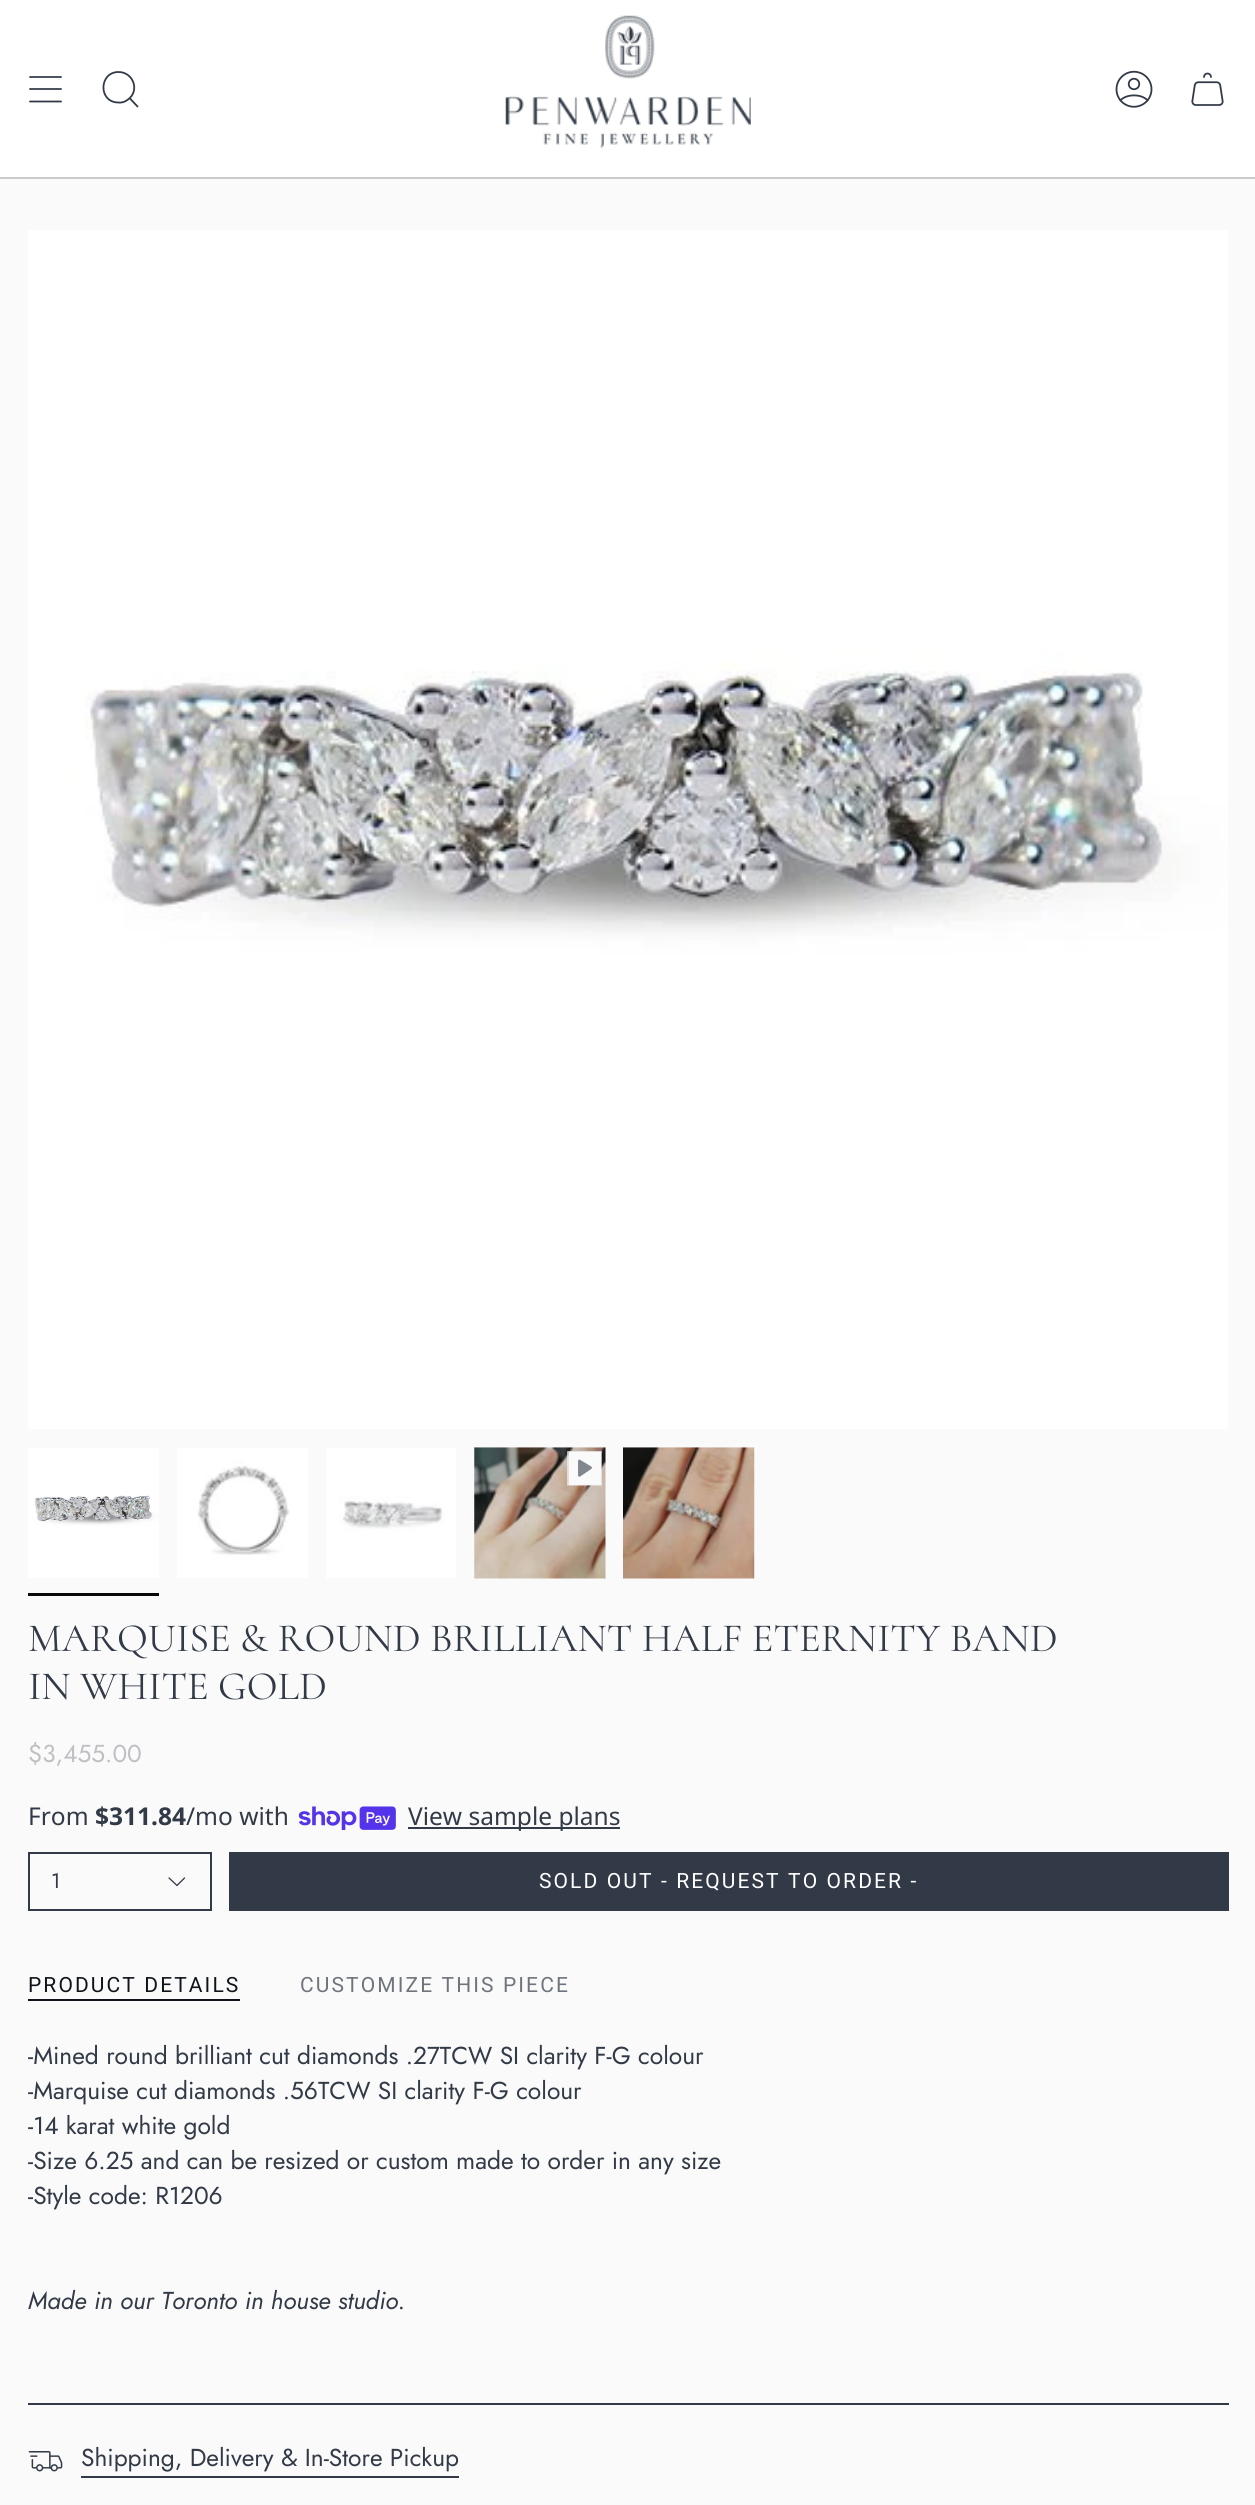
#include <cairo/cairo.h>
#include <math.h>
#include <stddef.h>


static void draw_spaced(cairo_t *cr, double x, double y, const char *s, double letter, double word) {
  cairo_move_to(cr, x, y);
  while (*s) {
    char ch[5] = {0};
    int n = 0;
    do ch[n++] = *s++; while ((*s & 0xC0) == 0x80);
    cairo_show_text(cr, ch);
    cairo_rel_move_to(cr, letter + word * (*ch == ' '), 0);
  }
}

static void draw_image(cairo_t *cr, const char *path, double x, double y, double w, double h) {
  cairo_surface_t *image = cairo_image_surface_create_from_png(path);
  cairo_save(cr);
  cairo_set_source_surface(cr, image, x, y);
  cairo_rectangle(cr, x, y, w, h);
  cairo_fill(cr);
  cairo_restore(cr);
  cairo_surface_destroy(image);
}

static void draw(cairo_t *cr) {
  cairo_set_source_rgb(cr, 250 / 255.0, 250 / 255.0, 250 / 255.0);
  cairo_paint(cr);
  cairo_set_source_rgb(cr, 1, 1, 1);
  cairo_rectangle(cr, 0, 0, 1255, 177);
  cairo_fill(cr);
  cairo_new_path(cr);
  cairo_move_to(cr, 30, 77);
  cairo_line_to(cr, 61, 77);
  cairo_move_to(cr, 30, 89);
  cairo_line_to(cr, 61, 89);
  cairo_move_to(cr, 30, 101.5);
  cairo_line_to(cr, 61, 101.5);
  cairo_set_source_rgb(cr, 49 / 255.0, 58 / 255.0, 70 / 255.0);
  cairo_set_line_width(cr, 1.8);
  cairo_set_line_cap(cr, CAIRO_LINE_CAP_ROUND);
  cairo_set_line_join(cr, CAIRO_LINE_JOIN_ROUND);
  cairo_stroke(cr);
  cairo_new_path(cr);
  cairo_move_to(cr, 118.5, 72);
  cairo_curve_to(cr, 133.5, 72, 140, 91, 128, 99.5);
  cairo_curve_to(cr, 125, 102, 121.5, 103, 118, 102.5);
  cairo_curve_to(cr, 98, 102, 99, 72, 118.5, 72);
  cairo_close_path(cr);
  cairo_move_to(cr, 129.5, 98);
  cairo_line_to(cr, 138, 107);
  cairo_set_line_cap(cr, CAIRO_LINE_CAP_BUTT);
  cairo_set_line_join(cr, CAIRO_LINE_JOIN_MITER);
  cairo_stroke(cr);
  draw_image(cr, "images/1.png", 505, 15, 246, 133);
  draw_image(cr, "images/2.png", 1115, 70, 38, 38);
  draw_image(cr, "images/3.png", 1191, 72, 33, 34);
  cairo_set_source_rgb(cr, 200 / 255.0, 202 / 255.0, 205 / 255.0);
  cairo_rectangle(cr, 0, 177, 1255, 2);
  cairo_fill(cr);
  draw_image(cr, "images/4.png", 28, 230, 1200, 1199);
  draw_image(cr, "images/5.png", 28, 1448, 131, 130);
  cairo_set_source_rgb(cr, 7 / 255.0, 8 / 255.0, 10 / 255.0);
  cairo_rectangle(cr, 28, 1593, 131, 3);
  cairo_fill(cr);
  draw_image(cr, "images/6.png", 177, 1448, 131, 130);
  draw_image(cr, "images/7.png", 326, 1448, 130, 130);
  draw_image(cr, "images/8.png", 474, 1447, 132, 132);
  draw_image(cr, "images/9.png", 567, 1451, 35, 35);
  draw_image(cr, "images/10.png", 623, 1447, 132, 132);
  draw_image(cr, "images/11.png", 298, 1806, 98, 24);
  cairo_set_source_rgb(cr, 49 / 255.0, 58 / 255.0, 70 / 255.0);
  cairo_rectangle(cr, 408, 1827, 212, 2);
  cairo_fill(cr);
  cairo_rectangle(cr, 29, 1853, 182, 57);
  cairo_set_line_width(cr, 2);
  cairo_stroke(cr);
  cairo_new_path(cr);
  cairo_move_to(cr, 169, 1878);
  cairo_line_to(cr, 177, 1885.5);
  cairo_line_to(cr, 184.5, 1878);
  cairo_set_line_width(cr, 1.3);
  cairo_set_line_cap(cr, CAIRO_LINE_CAP_ROUND);
  cairo_set_line_join(cr, CAIRO_LINE_JOIN_ROUND);
  cairo_stroke(cr);
  cairo_rectangle(cr, 229, 1852, 1000, 59);
  cairo_fill(cr);
  cairo_set_source_rgb(cr, 15 / 255.0, 20 / 255.0, 27 / 255.0);
  cairo_rectangle(cr, 28, 1999, 212, 2);
  cairo_fill(cr);
  cairo_set_source_rgb(cr, 49 / 255.0, 58 / 255.0, 70 / 255.0);
  cairo_rectangle(cr, 28, 2403, 1201, 2);
  cairo_fill(cr);
  draw_image(cr, "images/12.png", 28, 2451, 35, 21);
  cairo_rectangle(cr, 81, 2476, 378, 2);
  cairo_fill(cr);
  cairo_select_font_face(cr, "Cormorant", CAIRO_FONT_SLANT_NORMAL, CAIRO_FONT_WEIGHT_NORMAL);
  cairo_set_font_size(cr, 40.25);
  cairo_move_to(cr, 28, 1651);
  cairo_show_text(cr, "MARQUISE & ROUND BRILLIANT HALF ETERNITY BAND");
  cairo_move_to(cr, 28, 1699);
  cairo_show_text(cr, "IN WHITE GOLD");
  cairo_select_font_face(cr, "Jost", CAIRO_FONT_SLANT_NORMAL, CAIRO_FONT_WEIGHT_NORMAL);
  cairo_set_font_size(cr, 24.5);
  cairo_set_source_rgb(cr, 190 / 255.0, 192 / 255.0, 196 / 255.0);
  cairo_move_to(cr, 28, 1762);
  cairo_show_text(cr, "$3,455.00");
  cairo_select_font_face(cr, "Noto Sans", CAIRO_FONT_SLANT_NORMAL, CAIRO_FONT_WEIGHT_NORMAL);
  cairo_set_source_rgb(cr, 49 / 255.0, 58 / 255.0, 70 / 255.0);
  cairo_move_to(cr, 28, 1825);
  cairo_show_text(cr, "From");
  cairo_select_font_face(cr, "Noto Sans", CAIRO_FONT_SLANT_NORMAL, CAIRO_FONT_WEIGHT_BOLD);
  cairo_move_to(cr, 95, 1825);
  cairo_show_text(cr, "$311.84");
  cairo_select_font_face(cr, "Noto Sans", CAIRO_FONT_SLANT_NORMAL, CAIRO_FONT_WEIGHT_NORMAL);
  cairo_move_to(cr, 186, 1825);
  cairo_show_text(cr, "/mo with");
  cairo_move_to(cr, 408, 1825);
  cairo_show_text(cr, "View sample plans");
  cairo_select_font_face(cr, "Jost", CAIRO_FONT_SLANT_NORMAL, CAIRO_FONT_WEIGHT_NORMAL);
  cairo_set_font_size(cr, 21);
  cairo_move_to(cr, 51, 1888);
  cairo_show_text(cr, "1");
  cairo_select_font_face(cr, "Roboto", CAIRO_FONT_SLANT_NORMAL, CAIRO_FONT_WEIGHT_NORMAL);
  cairo_set_source_rgb(cr, 1, 1, 1);
  draw_spaced(cr, 539, 1888, "SOLD OUT - REQUEST TO ORDER -", 2.1, 0);
  cairo_set_source_rgb(cr, 15 / 255.0, 20 / 255.0, 27 / 255.0);
  draw_spaced(cr, 28, 1992, "PRODUCT DETAILS", 2.1, 0);
  cairo_set_source_rgb(cr, 109 / 255.0, 116 / 255.0, 124 / 255.0);
  draw_spaced(cr, 300, 1992, "CUSTOMIZE THIS PIECE", 2.1, 0);
  cairo_select_font_face(cr, "Jost", CAIRO_FONT_SLANT_NORMAL, CAIRO_FONT_WEIGHT_NORMAL);
  cairo_set_font_size(cr, 24.5);
  cairo_set_source_rgb(cr, 49 / 255.0, 58 / 255.0, 70 / 255.0);
  cairo_move_to(cr, 28, 2064);
  cairo_show_text(cr, "-Mined round brilliant cut diamonds .27TCW SI clarity F-G colour");
  cairo_move_to(cr, 28, 2099);
  cairo_show_text(cr, "-Marquise cut diamonds .56TCW SI clarity F-G colour");
  cairo_move_to(cr, 28, 2134);
  cairo_show_text(cr, "-14 karat white gold");
  cairo_move_to(cr, 28, 2169);
  cairo_show_text(cr, "-Size 6.25 and can be resized or custom made to order in any size");
  cairo_move_to(cr, 28, 2204);
  cairo_show_text(cr, "-Style code: R1206");
  cairo_select_font_face(cr, "Jost", CAIRO_FONT_SLANT_ITALIC, CAIRO_FONT_WEIGHT_NORMAL);
  cairo_move_to(cr, 28, 2309);
  cairo_show_text(cr, "Made in our Toronto in house studio.");
  cairo_select_font_face(cr, "Jost", CAIRO_FONT_SLANT_NORMAL, CAIRO_FONT_WEIGHT_NORMAL);
  cairo_move_to(cr, 81, 2466);
  cairo_show_text(cr, "Shipping, Delivery & In-Store Pickup");
}

int main(void) {
  cairo_surface_t *surface = cairo_image_surface_create(CAIRO_FORMAT_RGB24, 1255, 2505);
  cairo_t *cr = cairo_create(surface);
  cairo_font_options_t *options = cairo_font_options_create();
  cairo_font_options_set_hint_metrics(options, CAIRO_HINT_METRICS_OFF);
  cairo_font_options_set_hint_style(options, CAIRO_HINT_STYLE_NONE);
  cairo_set_font_options(cr, options);
  cairo_set_miter_limit(cr, 4);
  draw(cr);
  cairo_surface_write_to_png(surface, "out.png");
  cairo_font_options_destroy(options);
  cairo_destroy(cr);
  cairo_surface_destroy(surface);
  return 0;
}
